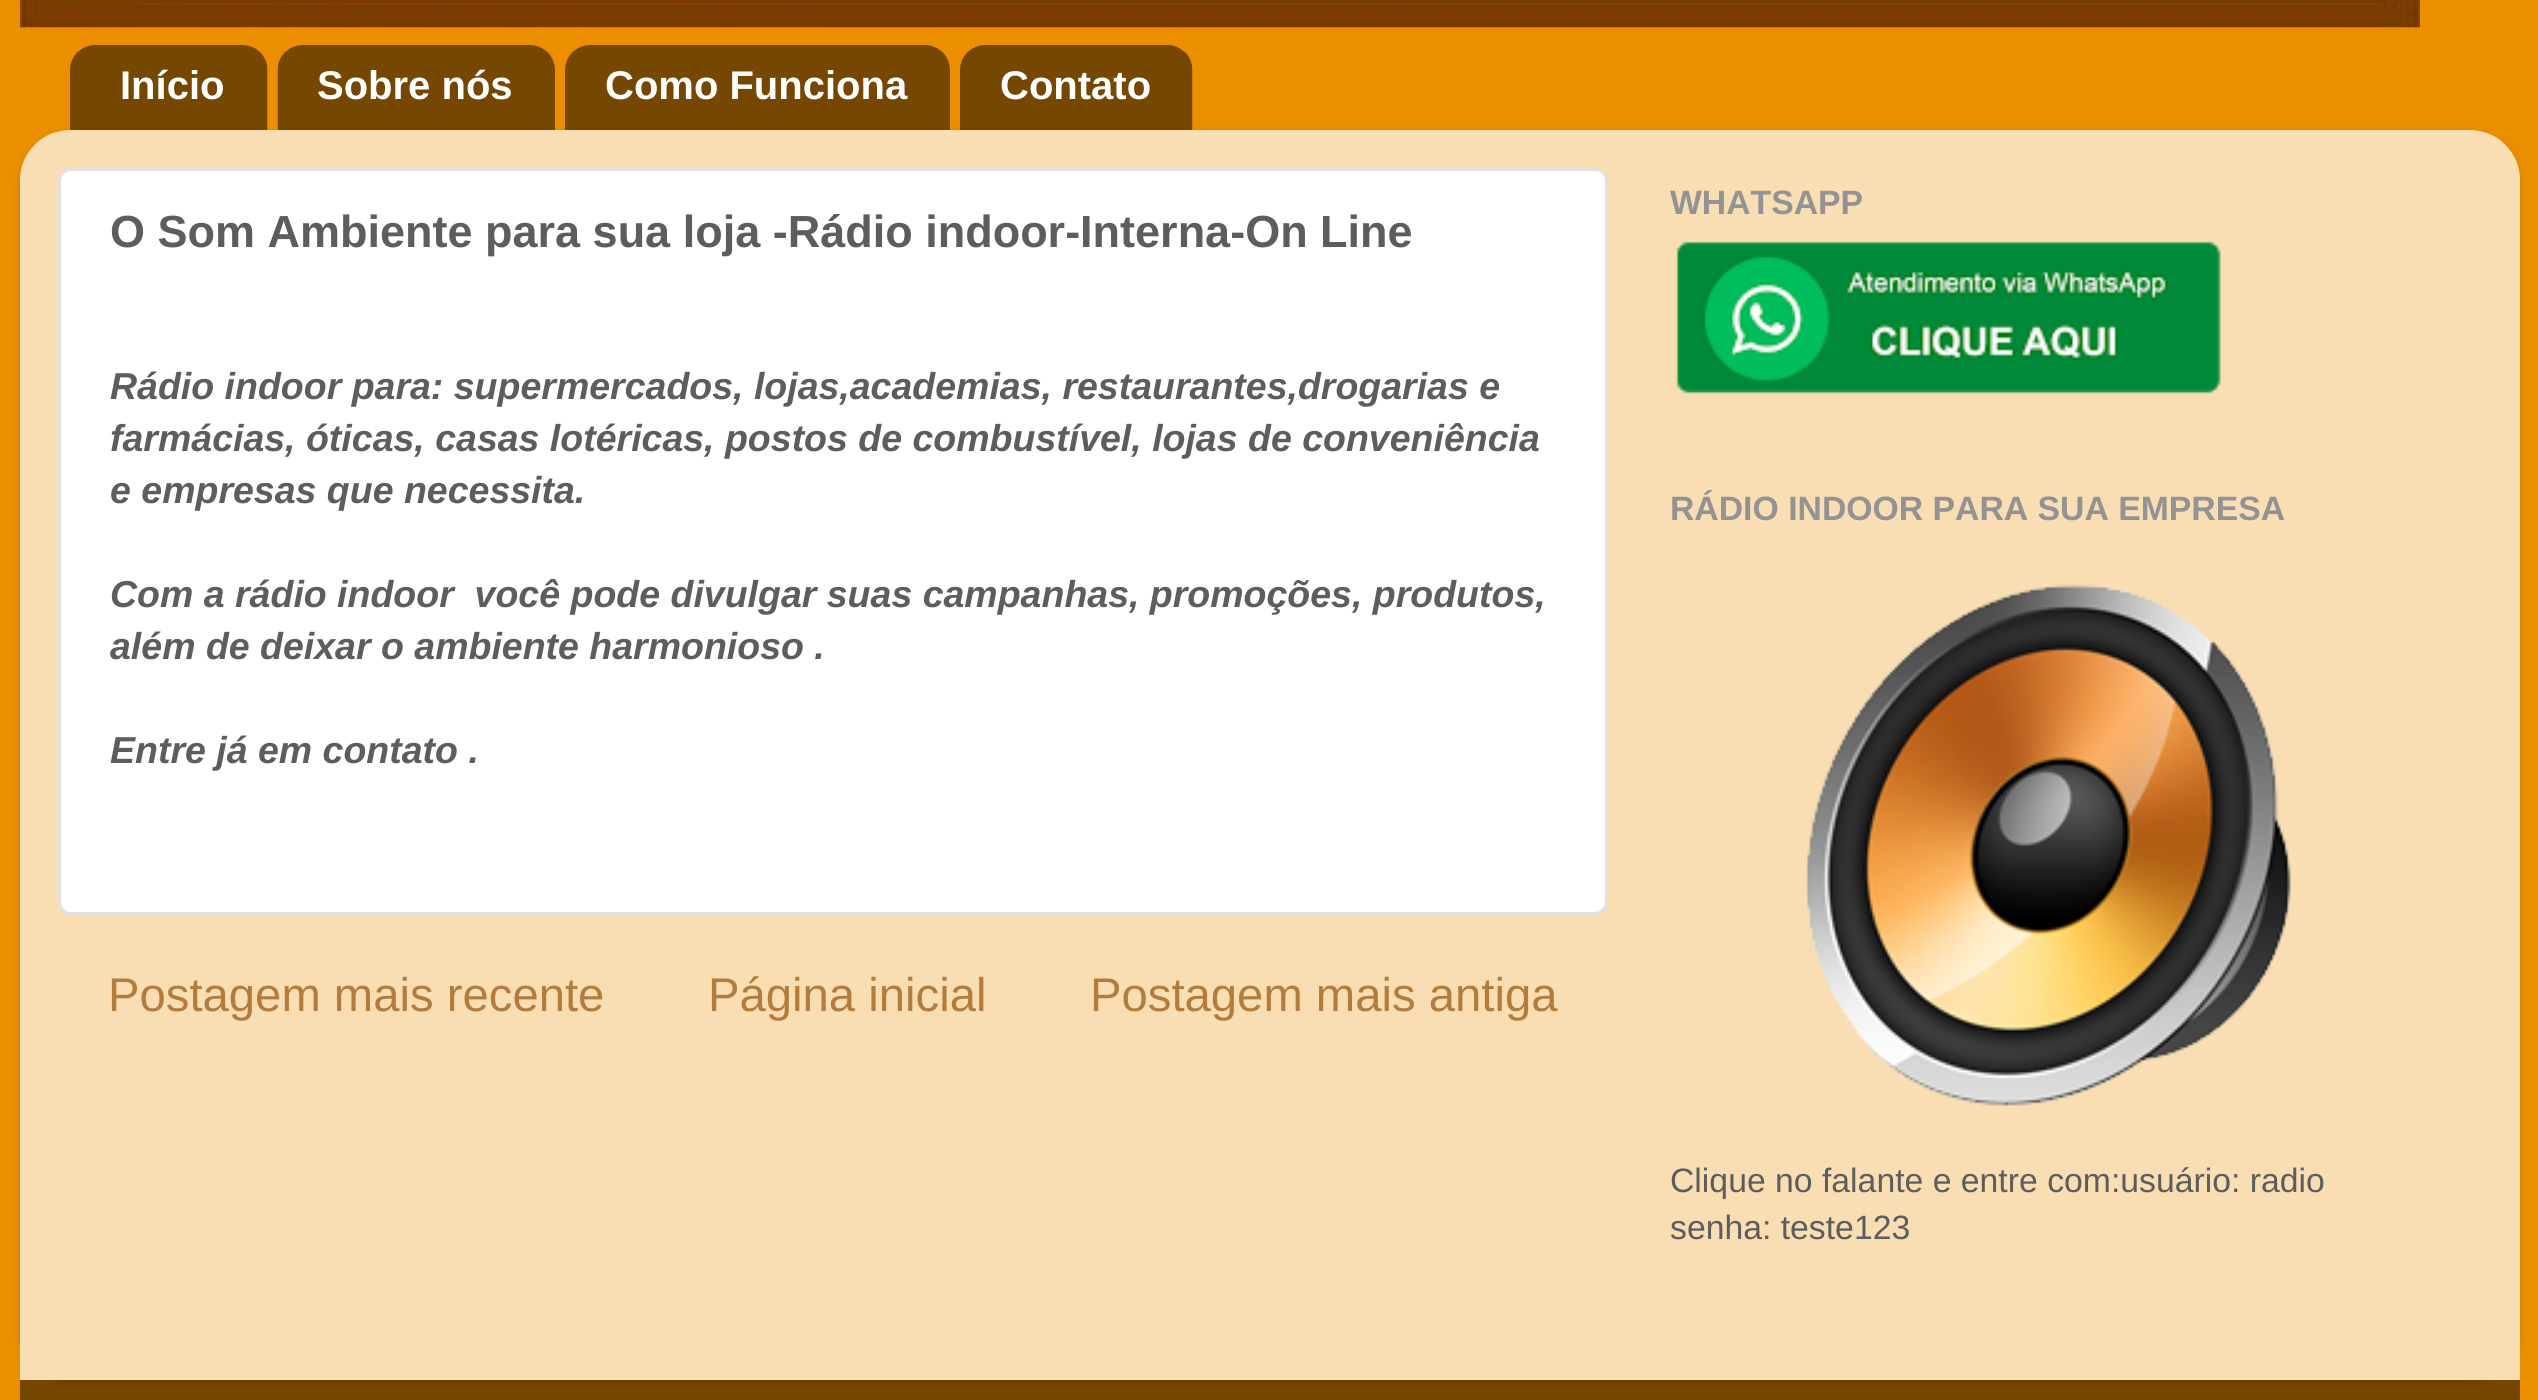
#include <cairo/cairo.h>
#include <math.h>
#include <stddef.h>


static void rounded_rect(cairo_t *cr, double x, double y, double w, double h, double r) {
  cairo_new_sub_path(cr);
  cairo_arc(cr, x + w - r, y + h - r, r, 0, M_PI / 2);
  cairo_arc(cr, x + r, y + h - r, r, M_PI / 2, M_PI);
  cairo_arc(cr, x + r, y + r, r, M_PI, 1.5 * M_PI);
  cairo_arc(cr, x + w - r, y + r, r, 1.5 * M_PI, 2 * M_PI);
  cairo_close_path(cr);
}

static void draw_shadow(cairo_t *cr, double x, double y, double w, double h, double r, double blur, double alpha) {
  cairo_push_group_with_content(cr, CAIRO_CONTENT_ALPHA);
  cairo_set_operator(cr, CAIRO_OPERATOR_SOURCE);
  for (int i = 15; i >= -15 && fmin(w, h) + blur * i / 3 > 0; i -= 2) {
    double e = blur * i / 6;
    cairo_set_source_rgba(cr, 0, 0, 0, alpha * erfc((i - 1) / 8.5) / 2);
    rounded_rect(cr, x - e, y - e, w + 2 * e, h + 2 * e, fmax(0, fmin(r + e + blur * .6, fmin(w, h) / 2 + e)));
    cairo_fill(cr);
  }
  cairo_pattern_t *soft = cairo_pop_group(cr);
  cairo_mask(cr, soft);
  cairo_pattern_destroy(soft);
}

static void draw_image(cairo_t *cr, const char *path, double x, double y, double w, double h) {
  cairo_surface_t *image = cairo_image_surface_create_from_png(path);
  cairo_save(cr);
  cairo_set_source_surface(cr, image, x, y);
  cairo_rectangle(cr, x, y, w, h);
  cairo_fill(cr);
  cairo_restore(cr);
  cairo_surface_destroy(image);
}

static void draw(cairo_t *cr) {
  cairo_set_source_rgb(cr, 235 / 255.0, 143 / 255.0, 0);
  cairo_paint(cr);
  draw_image(cr, "images/1.png", 20, 0, 2400, 28);
  draw_image(cr, "images/2.png", 70, 45, 198, 85);
  draw_image(cr, "images/3.png", 277, 45, 278, 85);
  draw_image(cr, "images/4.png", 565, 45, 385, 85);
  draw_image(cr, "images/5.png", 960, 45, 233, 85);
  cairo_save(cr);
  cairo_set_fill_rule(cr, CAIRO_FILL_RULE_EVEN_ODD);
  cairo_new_path(cr);
  cairo_move_to(cr, 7, 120);
  cairo_line_to(cr, 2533, 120);
  cairo_line_to(cr, 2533, 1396);
  cairo_line_to(cr, 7, 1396);
  cairo_close_path(cr);
  cairo_move_to(cr, 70, 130);
  cairo_line_to(cr, 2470, 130);
  cairo_curve_to(cr, 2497.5, 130, 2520, 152.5, 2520, 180);
  cairo_line_to(cr, 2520, 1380);
  cairo_line_to(cr, 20, 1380);
  cairo_line_to(cr, 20, 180);
  cairo_curve_to(cr, 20, 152.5, 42.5, 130, 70, 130);
  cairo_close_path(cr);
  cairo_clip(cr);
  cairo_set_source_rgb(cr, 0, 0, 0);
  draw_shadow(cr, 20, 133, 2500, 1250, 50, 4, 0.15);
  cairo_restore(cr);
  draw_image(cr, "images/6.png", 20, 130, 2500, 1250);
  cairo_set_source_rgb(cr, 1, 1, 1);
  rounded_rect(cr, 59.5, 169.5, 1547, 744, 11.5);
  cairo_fill_preserve(cr);
  cairo_set_source_rgb(cr, 225 / 255.0, 225 / 255.0, 225 / 255.0);
  cairo_set_line_width(cr, 3);
  cairo_stroke(cr);
  draw_image(cr, "images/7.png", 1676, 241, 545, 153);
  draw_image(cr, "images/8.png", 1805, 584, 486, 522);
  cairo_set_source_rgba(cr, 0, 0, 0, 0.5);
  cairo_rectangle(cr, 20, 1380, 2500, 20);
  cairo_fill(cr);
  cairo_select_font_face(cr, "Liberation Sans", CAIRO_FONT_SLANT_NORMAL, CAIRO_FONT_WEIGHT_BOLD);
  cairo_set_font_size(cr, 40);
  cairo_set_source_rgb(cr, 1, 1, 1);
  cairo_move_to(cr, 120, 99);
  cairo_show_text(cr, "Início");
  cairo_move_to(cr, 317, 99);
  cairo_show_text(cr, "Sobre nós");
  cairo_move_to(cr, 605, 99);
  cairo_show_text(cr, "Como Funciona");
  cairo_move_to(cr, 1000, 99);
  cairo_show_text(cr, "Contato");
  cairo_set_font_size(cr, 45);
  cairo_set_source_rgb(cr, 93 / 255.0, 93 / 255.0, 93 / 255.0);
  cairo_move_to(cr, 110, 247);
  cairo_show_text(cr, "O Som Ambiente para sua loja -Rádio indoor-Interna-On Line");
  cairo_select_font_face(cr, "Liberation Sans", CAIRO_FONT_SLANT_ITALIC, CAIRO_FONT_WEIGHT_BOLD);
  cairo_set_font_size(cr, 37.5);
  cairo_move_to(cr, 110, 399);
  cairo_show_text(cr, "Rádio indoor para: supermercados, lojas,academias, restaurantes,drogarias e");
  cairo_move_to(cr, 110, 451);
  cairo_show_text(cr, "farmácias, óticas, casas lotéricas, postos de combustível, lojas de conveniência");
  cairo_move_to(cr, 110, 503);
  cairo_show_text(cr, "e empresas que necessita.");
  cairo_move_to(cr, 110, 607);
  cairo_show_text(cr, "Com a rádio indoor  você pode divulgar suas campanhas, promoções, produtos,");
  cairo_move_to(cr, 110, 659);
  cairo_show_text(cr, "além de deixar o ambiente harmonioso .");
  cairo_move_to(cr, 110, 763);
  cairo_show_text(cr, "Entre já em contato .");
  cairo_select_font_face(cr, "Liberation Sans", CAIRO_FONT_SLANT_NORMAL, CAIRO_FONT_WEIGHT_NORMAL);
  cairo_set_font_size(cr, 47.25);
  cairo_set_source_rgb(cr, 180 / 255.0, 124 / 255.0, 60 / 255.0);
  cairo_move_to(cr, 108, 1011);
  cairo_show_text(cr, "Postagem mais recente");
  cairo_move_to(cr, 708, 1011);
  cairo_show_text(cr, "Página inicial");
  cairo_move_to(cr, 1090, 1011);
  cairo_show_text(cr, "Postagem mais antiga");
  cairo_select_font_face(cr, "Liberation Sans", CAIRO_FONT_SLANT_NORMAL, CAIRO_FONT_WEIGHT_BOLD);
  cairo_set_font_size(cr, 33.75);
  cairo_set_source_rgb(cr, 147 / 255.0, 147 / 255.0, 147 / 255.0);
  cairo_move_to(cr, 1670, 214);
  cairo_show_text(cr, "WHATSAPP");
  cairo_move_to(cr, 1670, 520);
  cairo_show_text(cr, "RÁDIO INDOOR PARA SUA EMPRESA");
  cairo_select_font_face(cr, "Liberation Sans", CAIRO_FONT_SLANT_NORMAL, CAIRO_FONT_WEIGHT_NORMAL);
  cairo_set_source_rgb(cr, 93 / 255.0, 93 / 255.0, 93 / 255.0);
  cairo_move_to(cr, 1670, 1192);
  cairo_show_text(cr, "Clique no falante e entre com:usuário: radio");
  cairo_move_to(cr, 1670, 1239);
  cairo_show_text(cr, "senha: teste123");
}

int main(void) {
  cairo_surface_t *surface = cairo_image_surface_create(CAIRO_FORMAT_RGB24, 2538, 1400);
  cairo_t *cr = cairo_create(surface);
  cairo_font_options_t *options = cairo_font_options_create();
  cairo_font_options_set_hint_metrics(options, CAIRO_HINT_METRICS_OFF);
  cairo_font_options_set_hint_style(options, CAIRO_HINT_STYLE_NONE);
  cairo_set_font_options(cr, options);
  cairo_set_miter_limit(cr, 4);
  draw(cr);
  cairo_surface_write_to_png(surface, "out.png");
  cairo_font_options_destroy(options);
  cairo_destroy(cr);
  cairo_surface_destroy(surface);
  return 0;
}
